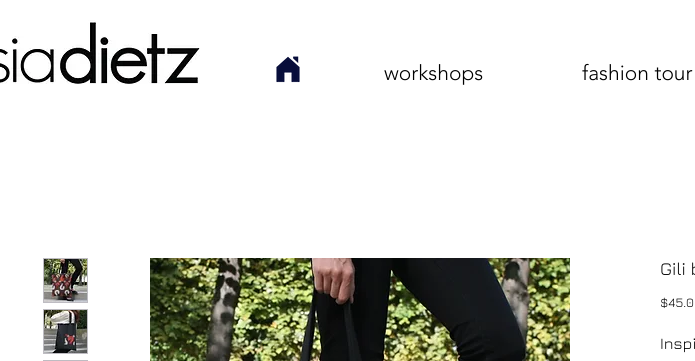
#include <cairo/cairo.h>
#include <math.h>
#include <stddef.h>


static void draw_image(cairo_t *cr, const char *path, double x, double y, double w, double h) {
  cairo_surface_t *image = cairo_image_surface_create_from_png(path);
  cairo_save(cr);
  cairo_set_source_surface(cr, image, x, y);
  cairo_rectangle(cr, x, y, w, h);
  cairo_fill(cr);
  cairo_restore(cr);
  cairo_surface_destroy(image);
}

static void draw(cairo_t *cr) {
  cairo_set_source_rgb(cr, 1, 1, 1);
  cairo_paint(cr);
  draw_image(cr, "images/1.png", 0, 20, 200, 64);
  draw_image(cr, "images/2.png", 276, 56, 24, 27);
  cairo_set_source_rgb(cr, 190 / 255.0, 188 / 255.0, 194 / 255.0);
  cairo_rectangle(cr, 43, 258, 45, 45);
  cairo_fill(cr);
  draw_image(cr, "images/3.png", 44, 259, 43, 43);
  cairo_rectangle(cr, 43, 309, 45, 45);
  cairo_fill(cr);
  draw_image(cr, "images/4.png", 44, 310, 43, 43);
  cairo_rectangle(cr, 43, 360, 45, 1);
  cairo_fill(cr);
  draw_image(cr, "images/5.png", 150, 258, 420, 103);
  cairo_select_font_face(cr, "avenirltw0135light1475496 Light", CAIRO_FONT_SLANT_NORMAL, CAIRO_FONT_WEIGHT_NORMAL);
  cairo_set_font_size(cr, 21);
  cairo_set_source_rgb(cr, 0, 0, 0);
  cairo_move_to(cr, 384, 80);
  cairo_show_text(cr, "workshops");
  cairo_move_to(cr, 582, 80);
  cairo_show_text(cr, "fashion tour");
  cairo_select_font_face(cr, "Jura", CAIRO_FONT_SLANT_NORMAL, CAIRO_FONT_WEIGHT_NORMAL);
  cairo_set_font_size(cr, 18);
  cairo_move_to(cr, 660, 275);
  cairo_show_text(cr, "Gili b");
  cairo_set_font_size(cr, 13);
  cairo_move_to(cr, 660, 307);
  cairo_show_text(cr, "$45.0");
  cairo_set_font_size(cr, 16);
  cairo_move_to(cr, 660, 349);
  cairo_show_text(cr, "Inspi");
}

int main(void) {
  cairo_surface_t *surface = cairo_image_surface_create(CAIRO_FORMAT_RGB24, 695, 361);
  cairo_t *cr = cairo_create(surface);
  cairo_font_options_t *options = cairo_font_options_create();
  cairo_font_options_set_hint_metrics(options, CAIRO_HINT_METRICS_OFF);
  cairo_font_options_set_hint_style(options, CAIRO_HINT_STYLE_NONE);
  cairo_set_font_options(cr, options);
  cairo_set_miter_limit(cr, 4);
  draw(cr);
  cairo_surface_write_to_png(surface, "out.png");
  cairo_font_options_destroy(options);
  cairo_destroy(cr);
  cairo_surface_destroy(surface);
  return 0;
}
